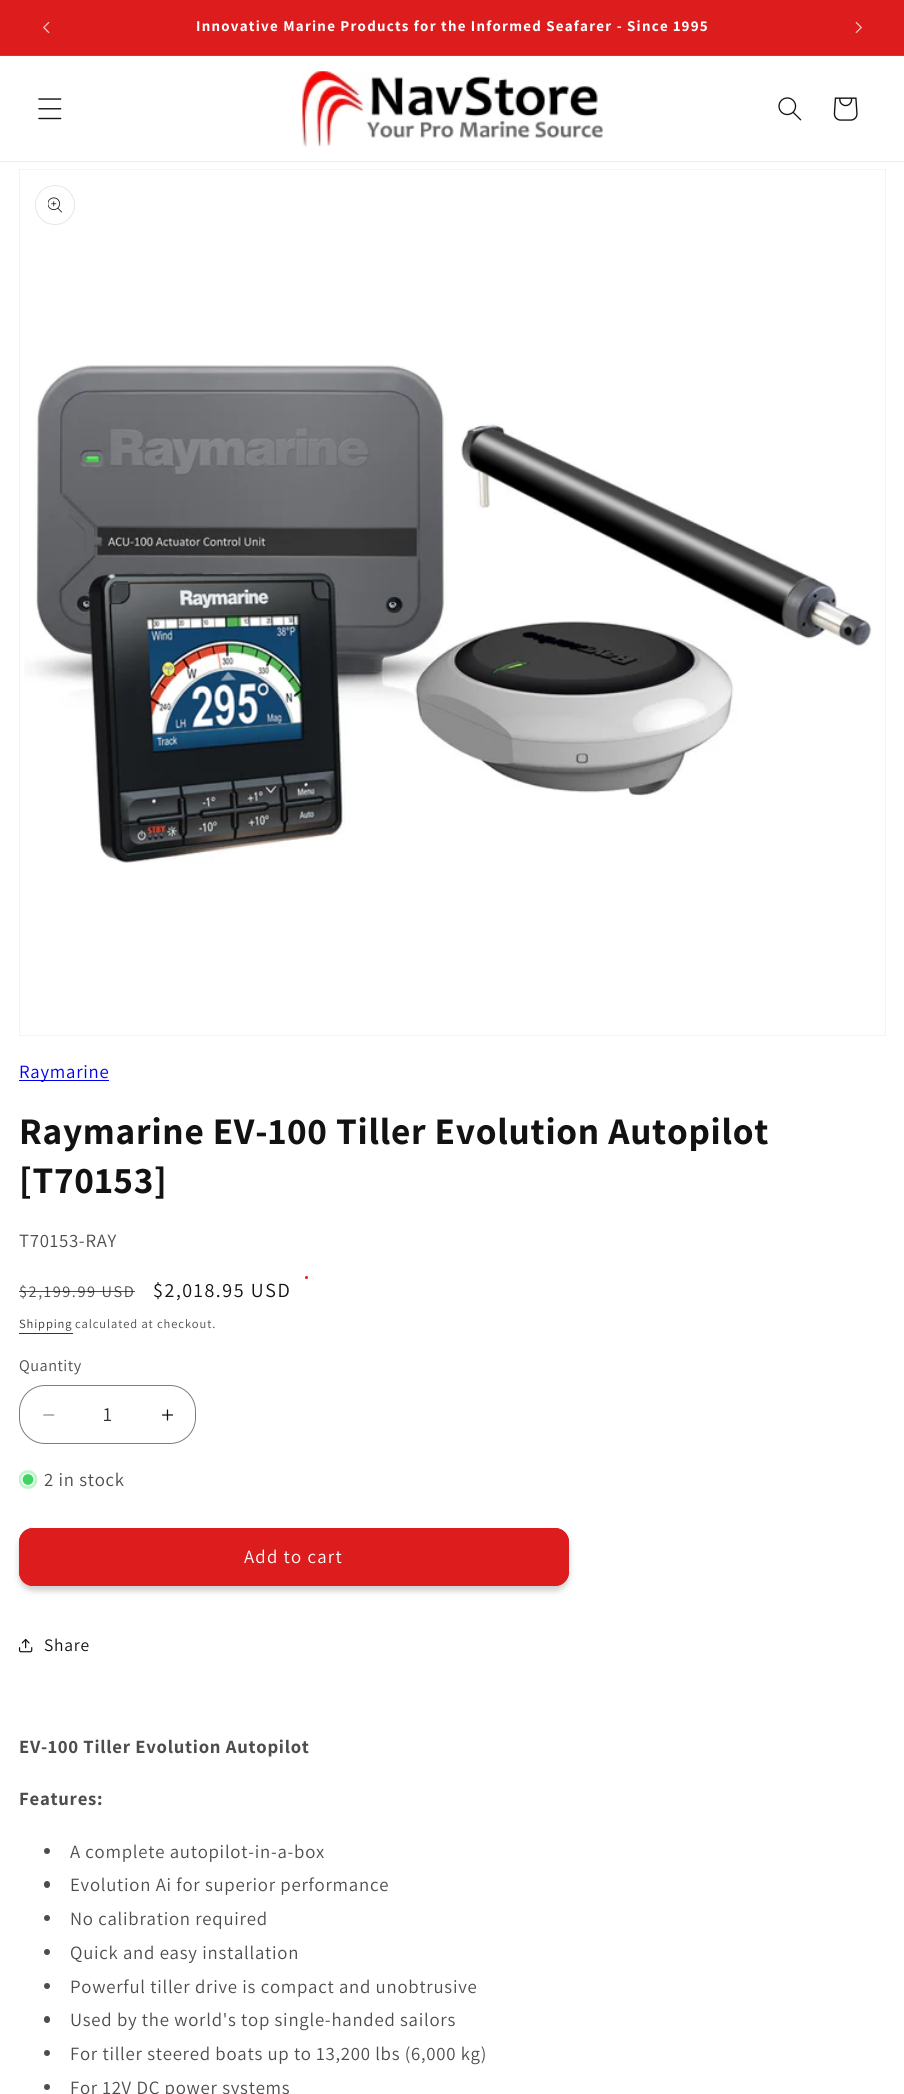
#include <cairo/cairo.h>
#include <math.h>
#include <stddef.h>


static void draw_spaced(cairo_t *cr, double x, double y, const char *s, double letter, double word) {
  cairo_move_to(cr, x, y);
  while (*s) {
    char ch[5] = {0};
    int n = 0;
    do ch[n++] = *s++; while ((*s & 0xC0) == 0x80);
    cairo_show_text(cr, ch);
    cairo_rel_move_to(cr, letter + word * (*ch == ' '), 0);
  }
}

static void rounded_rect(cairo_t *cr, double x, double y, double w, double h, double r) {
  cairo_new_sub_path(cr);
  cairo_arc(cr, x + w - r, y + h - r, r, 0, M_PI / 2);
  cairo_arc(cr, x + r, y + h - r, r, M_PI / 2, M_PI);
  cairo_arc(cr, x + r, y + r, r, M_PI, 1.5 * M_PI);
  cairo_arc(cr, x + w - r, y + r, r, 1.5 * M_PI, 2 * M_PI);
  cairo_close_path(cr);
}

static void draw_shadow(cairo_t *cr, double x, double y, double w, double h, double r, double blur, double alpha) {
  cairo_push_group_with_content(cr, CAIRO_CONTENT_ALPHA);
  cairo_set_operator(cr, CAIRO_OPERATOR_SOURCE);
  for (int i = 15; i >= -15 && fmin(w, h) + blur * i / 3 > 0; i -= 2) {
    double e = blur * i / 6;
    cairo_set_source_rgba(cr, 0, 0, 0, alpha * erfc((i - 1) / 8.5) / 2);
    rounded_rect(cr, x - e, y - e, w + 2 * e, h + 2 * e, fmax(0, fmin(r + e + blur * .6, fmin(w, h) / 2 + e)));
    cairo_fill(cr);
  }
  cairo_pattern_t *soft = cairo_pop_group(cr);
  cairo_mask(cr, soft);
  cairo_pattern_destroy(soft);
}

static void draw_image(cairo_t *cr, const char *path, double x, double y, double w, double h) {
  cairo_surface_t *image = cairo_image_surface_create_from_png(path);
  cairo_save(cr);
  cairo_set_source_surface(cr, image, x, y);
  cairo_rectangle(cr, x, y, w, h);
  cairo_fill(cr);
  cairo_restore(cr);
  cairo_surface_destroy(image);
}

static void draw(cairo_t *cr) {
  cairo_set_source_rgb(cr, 1, 1, 1);
  cairo_paint(cr);
  cairo_set_source_rgb(cr, 221 / 255.0, 29 / 255.0, 29 / 255.0);
  cairo_rectangle(cr, 0, 0, 904, 55);
  cairo_fill(cr);
  cairo_set_source_rgb(cr, 224 / 255.0, 47 / 255.0, 47 / 255.0);
  cairo_rectangle(cr, 0, 55, 904, 1);
  cairo_fill(cr);
  draw_image(cr, "images/1.png", 43, 21, 7, 13);
  draw_image(cr, "images/2.png", 855, 21, 7, 13);
  cairo_set_source_rgb(cr, 236 / 255.0, 236 / 255.0, 236 / 255.0);
  cairo_rectangle(cr, 0, 161, 904, 1);
  cairo_fill(cr);
  draw_image(cr, "images/3.png", 38, 98, 24, 22);
  draw_image(cr, "images/4.png", 302, 71, 301, 76);
  draw_image(cr, "images/5.png", 778, 97, 24, 24);
  draw_image(cr, "images/6.png", 833, 97, 25, 24);
  cairo_rectangle(cr, 19.5, 169.5, 866, 866);
  cairo_set_source_rgb(cr, 243 / 255.0, 243 / 255.0, 243 / 255.0);
  cairo_set_line_width(cr, 1);
  cairo_stroke(cr);
  cairo_arc(cr, 55, 205, 19.5, 0, 2 * M_PI);
  cairo_set_source_rgb(cr, 231 / 255.0, 231 / 255.0, 231 / 255.0);
  cairo_stroke(cr);
  draw_image(cr, "images/7.png", 48, 197, 14, 16);
  draw_image(cr, "images/8.png", 24, 365, 849, 498);
  cairo_set_source_rgb(cr, 0, 0, 238 / 255.0);
  cairo_rectangle(cr, 19, 1080, 90, 1);
  cairo_fill(cr);
  cairo_set_source_rgb(cr, 221 / 255.0, 29 / 255.0, 29 / 255.0);
  cairo_arc(cr, 306.5, 1277.5, 1.5, 0, 2 * M_PI);
  cairo_fill(cr);
  cairo_set_source_rgb(cr, 54 / 255.0, 54 / 255.0, 54 / 255.0);
  cairo_rectangle(cr, 19, 1333, 54, 1);
  cairo_fill(cr);
  draw_image(cr, "images/9.png", 43, 1414, 12, 2);
  draw_image(cr, "images/10.png", 162, 1409, 12, 12);
  rounded_rect(cr, 19.5, 1385.5, 176, 58, 25.5);
  cairo_set_source_rgb(cr, 125 / 255.0, 125 / 255.0, 125 / 255.0);
  cairo_stroke(cr);
  cairo_save(cr);
  cairo_rectangle(cr, 19, 1470, 19, 19);
  cairo_clip(cr);
  cairo_set_source_rgb(cr, 197 / 255.0, 243 / 255.0, 207 / 255.0);
  cairo_arc(cr, 28, 1479.5, 9.5, 0, 2 * M_PI);
  cairo_fill(cr);
  cairo_restore(cr);
  cairo_set_source_rgb(cr, 62 / 255.0, 214 / 255.0, 96 / 255.0);
  cairo_arc(cr, 28, 1479.5, 6, 0, 2 * M_PI);
  cairo_fill_preserve(cr);
  cairo_set_source_rgb(cr, 1, 1, 1);
  cairo_set_line_width(cr, 1.2);
  cairo_stroke(cr);
  cairo_set_source_rgb(cr, 18 / 255.0, 18 / 255.0, 18 / 255.0);
  draw_shadow(cr, 19, 1533, 550, 58, 14, 3, 0.2);
  cairo_set_source_rgb(cr, 221 / 255.0, 29 / 255.0, 29 / 255.0);
  rounded_rect(cr, 19, 1528, 550, 58, 14);
  cairo_fill(cr);
  rounded_rect(cr, 19.5, 1528.5, 549, 57, 13.5);
  cairo_set_line_width(cr, 1);
  cairo_stroke(cr);
  draw_image(cr, "images/11.png", 18, 1638, 15, 15);
  cairo_set_source_rgb(cr, 77 / 255.0, 77 / 255.0, 77 / 255.0);
  cairo_arc(cr, 47, 1851, 3, 0, 2 * M_PI);
  cairo_fill(cr);
  rounded_rect(cr, 44, 1881, 6, 7, 3);
  cairo_fill(cr);
  cairo_arc(cr, 47, 1918, 3, 0, 2 * M_PI);
  cairo_fill(cr);
  cairo_arc(cr, 47, 1952, 3, 0, 2 * M_PI);
  cairo_fill(cr);
  cairo_arc(cr, 47, 1986, 3, 0, 2 * M_PI);
  cairo_fill(cr);
  rounded_rect(cr, 44, 2016, 6, 7, 3);
  cairo_fill(cr);
  cairo_arc(cr, 47, 2053, 3, 0, 2 * M_PI);
  cairo_fill(cr);
  cairo_arc(cr, 47, 2087, 3, 0, 2 * M_PI);
  cairo_fill(cr);
  cairo_select_font_face(cr, "Assistant", CAIRO_FONT_SLANT_NORMAL, CAIRO_FONT_WEIGHT_BOLD);
  cairo_set_font_size(cr, 15);
  cairo_set_source_rgb(cr, 1, 1, 1);
  draw_spaced(cr, 196, 31, "Innovative Marine Products for the Informed Seafarer - Since 1995", 1.25, 0);
  cairo_select_font_face(cr, "Assistant", CAIRO_FONT_SLANT_NORMAL, CAIRO_FONT_WEIGHT_NORMAL);
  cairo_set_font_size(cr, 18.75);
  cairo_set_source_rgb(cr, 0, 0, 238 / 255.0);
  draw_spaced(cr, 19, 1078, "Raymarine", 0.75, 0);
  cairo_select_font_face(cr, "Assistant", CAIRO_FONT_SLANT_NORMAL, CAIRO_FONT_WEIGHT_BOLD);
  cairo_set_font_size(cr, 37.5);
  cairo_set_source_rgb(cr, 18 / 255.0, 18 / 255.0, 18 / 255.0);
  draw_spaced(cr, 19, 1144, "Raymarine EV-100 Tiller Evolution Autopilot", 0.75, 0);
  draw_spaced(cr, 19, 1193, "[T70153]", 0.75, 0);
  cairo_select_font_face(cr, "Assistant", CAIRO_FONT_SLANT_NORMAL, CAIRO_FONT_WEIGHT_NORMAL);
  cairo_set_font_size(cr, 18.75);
  cairo_set_source_rgb(cr, 77 / 255.0, 77 / 255.0, 77 / 255.0);
  draw_spaced(cr, 19, 1247, "T70153-RAY", 0.75, 0);
  cairo_set_font_size(cr, 16.25);
  draw_spaced(cr, 19, 1297, "$2,199.99 USD", 1.6, 0);
  cairo_set_source_rgba(cr, 18 / 255.0, 18 / 255.0, 18 / 255.0, 0.75);
  cairo_rectangle(cr, 19, 1291, 116, 1);
  cairo_fill(cr);
  cairo_set_font_size(cr, 20);
  cairo_set_source_rgb(cr, 18 / 255.0, 18 / 255.0, 18 / 255.0);
  draw_spaced(cr, 153, 1297, "$2,018.95 USD", 1.6, 0);
  cairo_set_font_size(cr, 12.5);
  cairo_set_source_rgb(cr, 54 / 255.0, 54 / 255.0, 54 / 255.0);
  draw_spaced(cr, 19, 1328, "Shipping", 0.9, 0);
  cairo_set_source_rgb(cr, 77 / 255.0, 77 / 255.0, 77 / 255.0);
  draw_spaced(cr, 75, 1328, "calculated at checkout.", 0.9, 0);
  cairo_set_font_size(cr, 16.25);
  draw_spaced(cr, 19, 1371, "Quantity", 0.5, 0);
  cairo_set_font_size(cr, 20);
  cairo_set_source_rgb(cr, 54 / 255.0, 54 / 255.0, 54 / 255.0);
  cairo_move_to(cr, 103, 1421);
  cairo_show_text(cr, "1");
  cairo_set_font_size(cr, 18.75);
  cairo_set_source_rgb(cr, 77 / 255.0, 77 / 255.0, 77 / 255.0);
  draw_spaced(cr, 44, 1486, "2 in stock", 0.75, 0);
  cairo_set_source_rgb(cr, 1, 1, 1);
  draw_spaced(cr, 244, 1563, "Add to cart", 1.25, 0);
  cairo_set_font_size(cr, 17.5);
  cairo_set_source_rgb(cr, 18 / 255.0, 18 / 255.0, 18 / 255.0);
  draw_spaced(cr, 44, 1651, "Share", 0.75, 0);
  cairo_select_font_face(cr, "Assistant", CAIRO_FONT_SLANT_NORMAL, CAIRO_FONT_WEIGHT_BOLD);
  cairo_set_font_size(cr, 18.75);
  cairo_set_source_rgb(cr, 77 / 255.0, 77 / 255.0, 77 / 255.0);
  draw_spaced(cr, 19, 1753, "EV-100 Tiller Evolution Autopilot", 0.75, 0);
  draw_spaced(cr, 19, 1805, "Features:", 0.75, 0);
  cairo_select_font_face(cr, "Assistant", CAIRO_FONT_SLANT_NORMAL, CAIRO_FONT_WEIGHT_NORMAL);
  draw_spaced(cr, 70, 1858, "A complete autopilot-in-a-box", 0.75, 0);
  draw_spaced(cr, 70, 1891, "Evolution Ai for superior performance", 0.75, 0);
  draw_spaced(cr, 70, 1925, "No calibration required", 0.75, 0);
  draw_spaced(cr, 70, 1959, "Quick and easy installation", 0.75, 0);
  draw_spaced(cr, 70, 1993, "Powerful tiller drive is compact and unobtrusive", 0.75, 0);
  draw_spaced(cr, 70, 2026, "Used by the world's top single-handed sailors", 0.75, 0);
  draw_spaced(cr, 70, 2060, "For tiller steered boats up to 13,200 lbs (6,000 kg)", 0.75, 0);
  draw_spaced(cr, 70, 2094, "For 12V DC power systems", 0.75, 0);
}

int main(void) {
  cairo_surface_t *surface = cairo_image_surface_create(CAIRO_FORMAT_RGB24, 904, 2094);
  cairo_t *cr = cairo_create(surface);
  cairo_font_options_t *options = cairo_font_options_create();
  cairo_font_options_set_hint_metrics(options, CAIRO_HINT_METRICS_OFF);
  cairo_font_options_set_hint_style(options, CAIRO_HINT_STYLE_NONE);
  cairo_set_font_options(cr, options);
  cairo_set_miter_limit(cr, 4);
  draw(cr);
  cairo_surface_write_to_png(surface, "out.png");
  cairo_font_options_destroy(options);
  cairo_destroy(cr);
  cairo_surface_destroy(surface);
  return 0;
}
